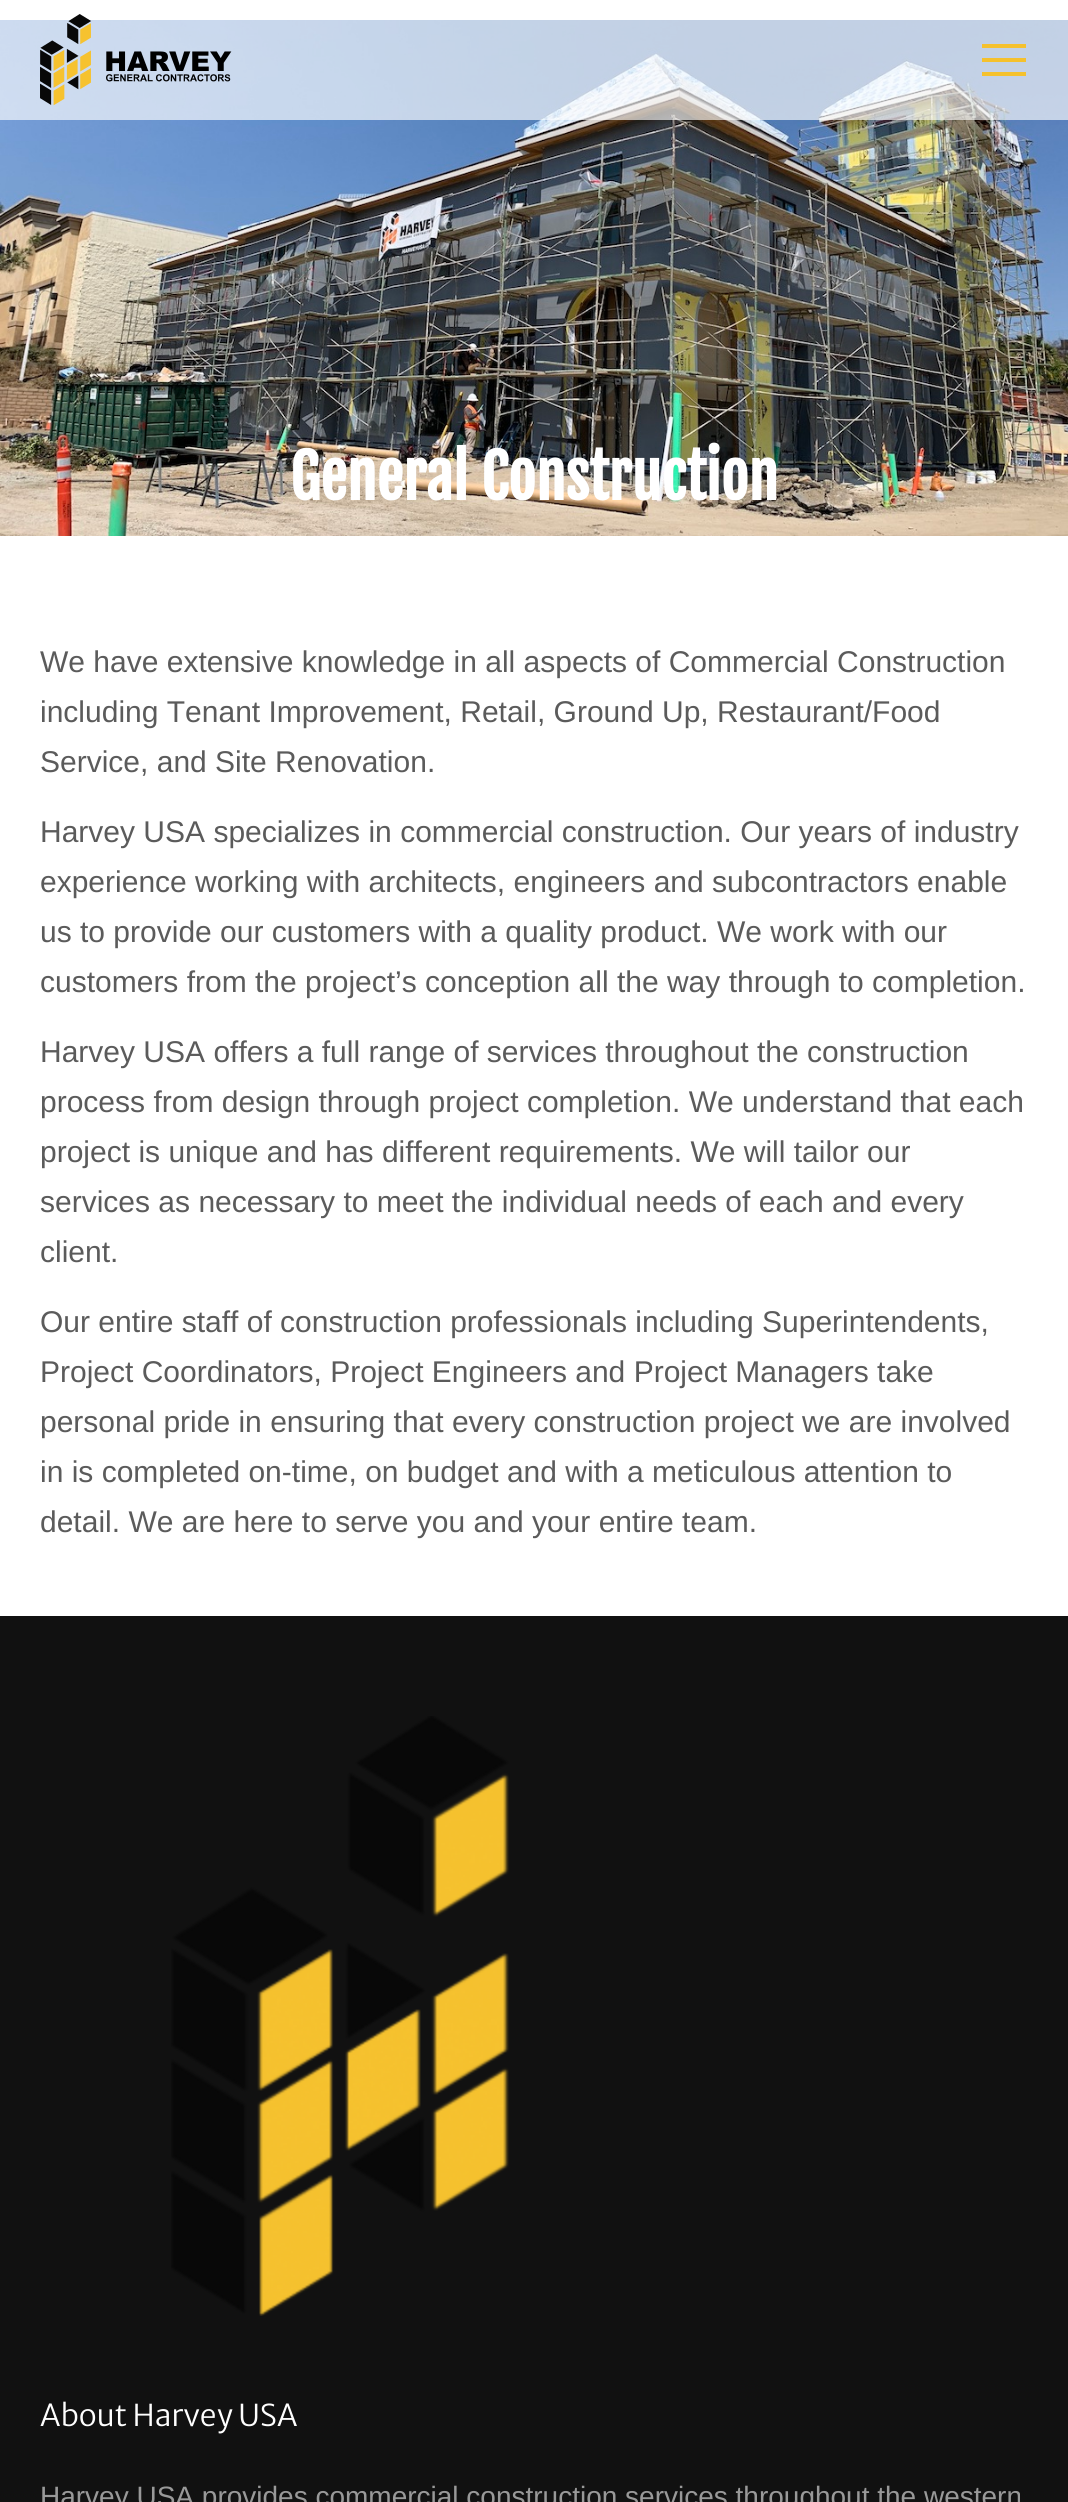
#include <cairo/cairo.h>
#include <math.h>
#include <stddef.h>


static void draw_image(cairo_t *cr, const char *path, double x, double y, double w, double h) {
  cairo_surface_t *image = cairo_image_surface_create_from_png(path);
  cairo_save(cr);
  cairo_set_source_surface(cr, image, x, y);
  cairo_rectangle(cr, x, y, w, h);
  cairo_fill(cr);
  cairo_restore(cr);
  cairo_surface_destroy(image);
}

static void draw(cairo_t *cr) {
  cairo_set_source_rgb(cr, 1, 1, 1);
  cairo_paint(cr);
  draw_image(cr, "images/2.png", 0, 20, 1068, 516);
  cairo_set_source_rgba(cr, 1, 1, 1, 0.65);
  cairo_rectangle(cr, 0, 20, 1068, 100);
  cairo_fill(cr);
  draw_image(cr, "images/1.png", 40, 14, 192, 92);
  cairo_set_source_rgb(cr, 245 / 255.0, 193 / 255.0, 45 / 255.0);
  cairo_rectangle(cr, 982, 44, 44, 4);
  cairo_fill(cr);
  cairo_rectangle(cr, 982, 58, 44, 4);
  cairo_fill(cr);
  cairo_rectangle(cr, 982, 72, 44, 4);
  cairo_fill(cr);
  cairo_set_source_rgb(cr, 17 / 255.0, 17 / 255.0, 17 / 255.0);
  cairo_rectangle(cr, 0, 1616, 1068, 886);
  cairo_fill(cr);
  draw_image(cr, "images/3.png", 171, 1716, 338, 600);
  cairo_select_font_face(cr, "Fjalla One", CAIRO_FONT_SLANT_NORMAL, CAIRO_FONT_WEIGHT_BOLD);
  cairo_set_font_size(cr, 60);
  cairo_set_source_rgb(cr, 1, 1, 1);
  cairo_move_to(cr, 290, 500);
  cairo_show_text(cr, "General Construction");
  cairo_select_font_face(cr, "Liberation Sans", CAIRO_FONT_SLANT_NORMAL, CAIRO_FONT_WEIGHT_NORMAL);
  cairo_set_font_size(cr, 30);
  cairo_set_source_rgb(cr, 91 / 255.0, 91 / 255.0, 91 / 255.0);
  cairo_move_to(cr, 40, 672);
  cairo_show_text(cr, "We have extensive knowledge in all aspects of Commercial Construction");
  cairo_move_to(cr, 40, 722);
  cairo_show_text(cr, "including Tenant Improvement, Retail, Ground Up, Restaurant/Food");
  cairo_move_to(cr, 40, 772);
  cairo_show_text(cr, "Service, and Site Renovation.");
  cairo_move_to(cr, 40, 842);
  cairo_show_text(cr, "Harvey USA specializes in commercial construction. Our years of industry");
  cairo_move_to(cr, 40, 892);
  cairo_show_text(cr, "experience working with architects, engineers and subcontractors enable");
  cairo_move_to(cr, 40, 942);
  cairo_show_text(cr, "us to provide our customers with a quality product. We work with our");
  cairo_move_to(cr, 40, 992);
  cairo_show_text(cr, "customers from the project’s conception all the way through to completion.");
  cairo_move_to(cr, 40, 1062);
  cairo_show_text(cr, "Harvey USA offers a full range of services throughout the construction");
  cairo_move_to(cr, 40, 1112);
  cairo_show_text(cr, "process from design through project completion. We understand that each");
  cairo_move_to(cr, 40, 1162);
  cairo_show_text(cr, "project is unique and has different requirements. We will tailor our");
  cairo_move_to(cr, 40, 1212);
  cairo_show_text(cr, "services as necessary to meet the individual needs of each and every");
  cairo_move_to(cr, 40, 1262);
  cairo_show_text(cr, "client.");
  cairo_move_to(cr, 40, 1332);
  cairo_show_text(cr, "Our entire staff of construction professionals including Superintendents,");
  cairo_move_to(cr, 40, 1382);
  cairo_show_text(cr, "Project Coordinators, Project Engineers and Project Managers take");
  cairo_move_to(cr, 40, 1432);
  cairo_show_text(cr, "personal pride in ensuring that every construction project we are involved");
  cairo_move_to(cr, 40, 1482);
  cairo_show_text(cr, "in is completed on-time, on budget and with a meticulous attention to");
  cairo_move_to(cr, 40, 1532);
  cairo_show_text(cr, "detail. We are here to serve you and your entire team.");
  cairo_select_font_face(cr, "Merriweather Sans Light", CAIRO_FONT_SLANT_NORMAL, CAIRO_FONT_WEIGHT_NORMAL);
  cairo_set_source_rgb(cr, 1, 1, 1);
  cairo_move_to(cr, 40, 2426);
  cairo_show_text(cr, "About Harvey USA");
  cairo_select_font_face(cr, "Liberation Sans", CAIRO_FONT_SLANT_NORMAL, CAIRO_FONT_WEIGHT_NORMAL);
  cairo_set_font_size(cr, 28);
  cairo_set_source_rgb(cr, 153 / 255.0, 153 / 255.0, 153 / 255.0);
  cairo_move_to(cr, 40, 2506);
  cairo_show_text(cr, "Harvey USA provides commercial construction services throughout the western");
}

int main(void) {
  cairo_surface_t *surface = cairo_image_surface_create(CAIRO_FORMAT_RGB24, 1068, 2502);
  cairo_t *cr = cairo_create(surface);
  cairo_font_options_t *options = cairo_font_options_create();
  cairo_font_options_set_hint_metrics(options, CAIRO_HINT_METRICS_OFF);
  cairo_font_options_set_hint_style(options, CAIRO_HINT_STYLE_NONE);
  cairo_set_font_options(cr, options);
  cairo_set_miter_limit(cr, 4);
  draw(cr);
  cairo_surface_write_to_png(surface, "out.png");
  cairo_font_options_destroy(options);
  cairo_destroy(cr);
  cairo_surface_destroy(surface);
  return 0;
}
